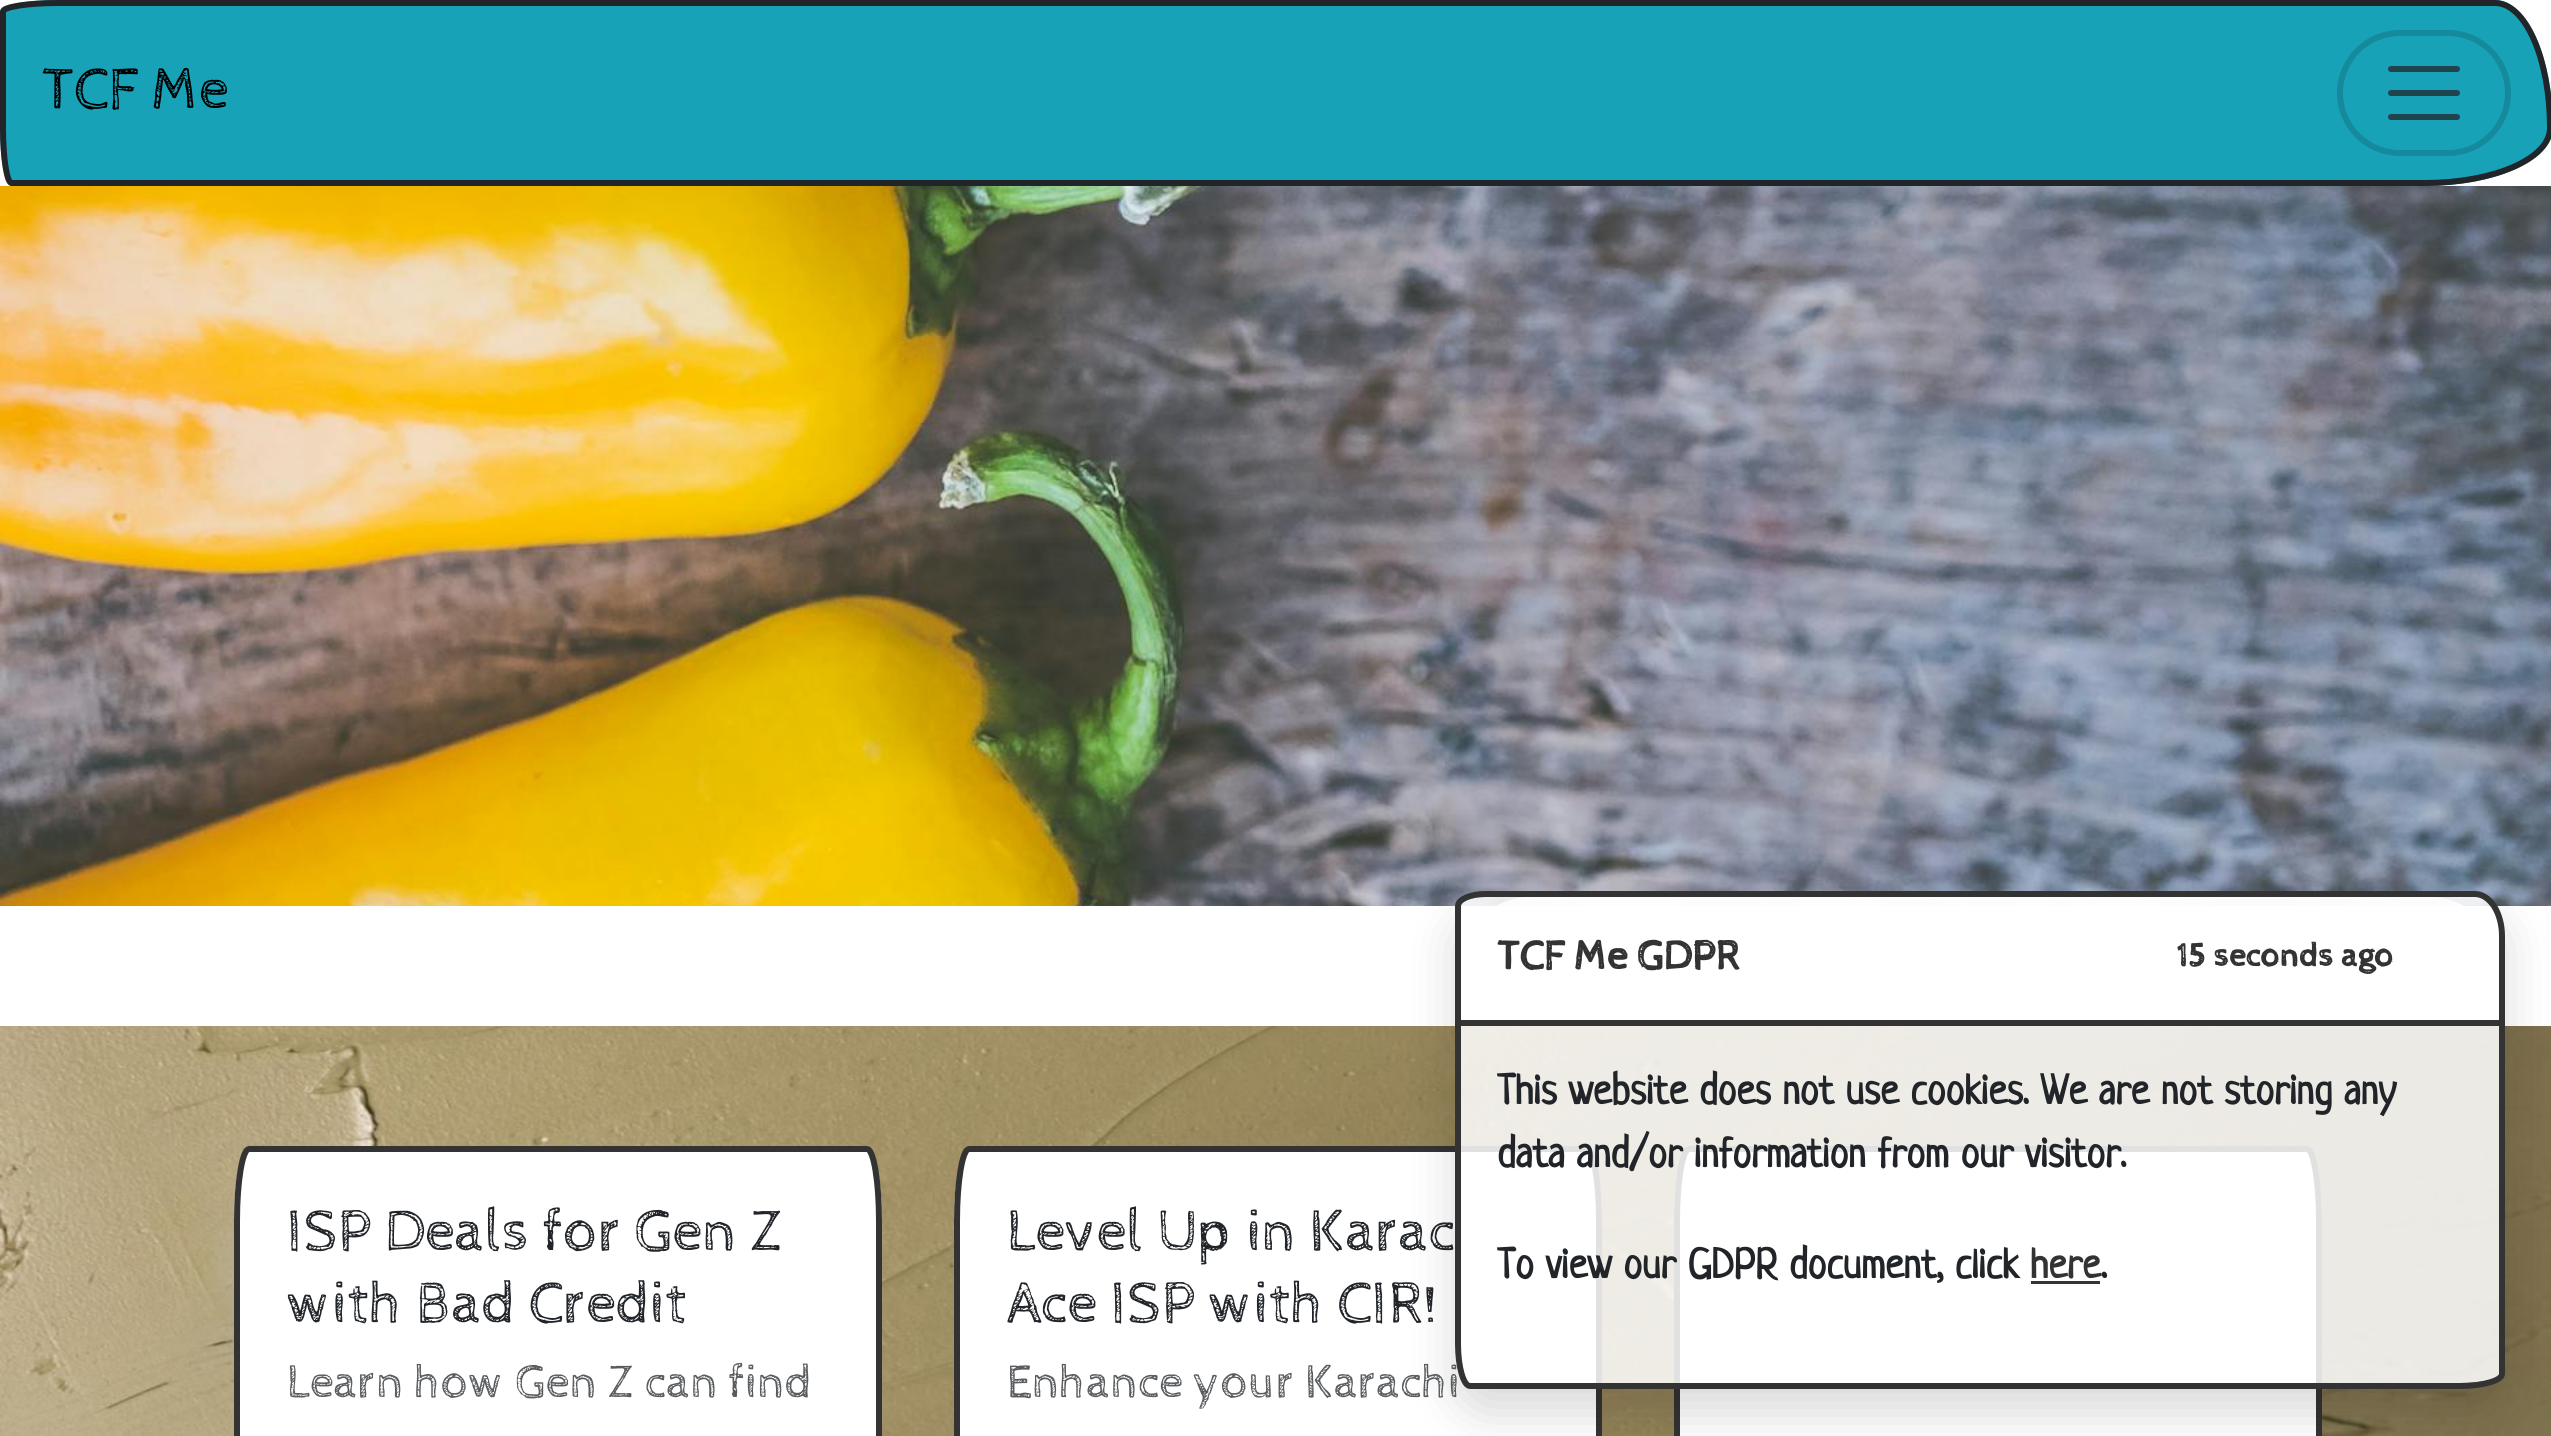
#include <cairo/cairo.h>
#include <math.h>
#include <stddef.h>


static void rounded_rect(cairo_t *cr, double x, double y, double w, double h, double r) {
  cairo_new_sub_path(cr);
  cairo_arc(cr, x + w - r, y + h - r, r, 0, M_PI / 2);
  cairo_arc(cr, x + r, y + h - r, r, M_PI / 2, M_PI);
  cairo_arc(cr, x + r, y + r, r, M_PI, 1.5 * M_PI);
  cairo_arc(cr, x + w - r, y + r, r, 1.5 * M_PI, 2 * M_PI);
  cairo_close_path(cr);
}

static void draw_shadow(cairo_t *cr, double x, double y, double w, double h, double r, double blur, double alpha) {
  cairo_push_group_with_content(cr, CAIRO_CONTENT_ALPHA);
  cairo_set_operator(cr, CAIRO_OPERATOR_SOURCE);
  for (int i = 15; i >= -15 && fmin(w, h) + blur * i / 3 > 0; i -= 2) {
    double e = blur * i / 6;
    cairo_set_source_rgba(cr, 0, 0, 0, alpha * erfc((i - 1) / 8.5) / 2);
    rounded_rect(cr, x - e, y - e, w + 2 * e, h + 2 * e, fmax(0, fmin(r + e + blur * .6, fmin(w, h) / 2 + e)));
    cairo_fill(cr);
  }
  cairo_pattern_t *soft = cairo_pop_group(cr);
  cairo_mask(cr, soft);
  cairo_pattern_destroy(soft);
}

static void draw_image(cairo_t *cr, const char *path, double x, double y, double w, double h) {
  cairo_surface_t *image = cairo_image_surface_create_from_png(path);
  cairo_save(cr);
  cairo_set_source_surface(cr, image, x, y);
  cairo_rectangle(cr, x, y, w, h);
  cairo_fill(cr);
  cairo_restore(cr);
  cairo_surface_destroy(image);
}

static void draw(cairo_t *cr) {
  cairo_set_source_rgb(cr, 1, 1, 1);
  cairo_paint(cr);
  cairo_set_source_rgb(cr, 23 / 255.0, 162 / 255.0, 184 / 255.0);
  cairo_new_path(cr);
  cairo_move_to(cr, 58, 0);
  cairo_line_to(cr, 2495, 0);
  cairo_curve_to(cr, 2527, 0, 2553, 57, 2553, 128);
  cairo_curve_to(cr, 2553, 160, 2496, 186, 2425, 186);
  cairo_line_to(cr, 12, 186);
  cairo_curve_to(cr, 5, 186, 0, 160, 0, 128);
  cairo_line_to(cr, 0, 12);
  cairo_curve_to(cr, 0, 5, 26, 0, 58, 0);
  cairo_close_path(cr);
  cairo_fill(cr);
  cairo_new_path(cr);
  cairo_move_to(cr, 58, 3);
  cairo_line_to(cr, 2495, 3);
  cairo_curve_to(cr, 2525.5, 3, 2550, 59, 2550, 128);
  cairo_curve_to(cr, 2550, 158.5, 2494, 183, 2425, 183);
  cairo_line_to(cr, 11.5, 183);
  cairo_curve_to(cr, 7, 183, 3, 158.5, 3, 128);
  cairo_line_to(cr, 3, 11.5);
  cairo_curve_to(cr, 3, 7, 27.5, 3, 58, 3);
  cairo_close_path(cr);
  cairo_set_source_rgb(cr, 33 / 255.0, 37 / 255.0, 41 / 255.0);
  cairo_set_line_width(cr, 6);
  cairo_stroke(cr);
  rounded_rect(cr, 2340, 33, 168, 120, 60);
  cairo_set_source_rgb(cr, 20 / 255.0, 138 / 255.0, 156 / 255.0);
  cairo_stroke(cr);
  cairo_new_path(cr);
  cairo_move_to(cr, 2391, 69);
  cairo_line_to(cr, 2457, 69);
  cairo_move_to(cr, 2391, 93);
  cairo_line_to(cr, 2457, 93);
  cairo_move_to(cr, 2391, 117);
  cairo_line_to(cr, 2457, 117);
  cairo_set_source_rgb(cr, 31 / 255.0, 68 / 255.0, 77 / 255.0);
  cairo_set_line_cap(cr, CAIRO_LINE_CAP_ROUND);
  cairo_stroke(cr);
  draw_image(cr, "images/1.png", 0, 186, 2551, 720);
  draw_image(cr, "images/2.png", 0, 1026, 2551, 410);
  cairo_set_source_rgb(cr, 1, 1, 1);
  cairo_new_path(cr);
  cairo_move_to(cr, 969, 1146);
  cairo_line_to(cr, 1587, 1146);
  cairo_curve_to(cr, 1595, 1146, 1602, 1180, 1602, 1221);
  cairo_line_to(cr, 1602, 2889);
  cairo_curve_to(cr, 1602, 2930, 1595, 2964, 1587, 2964);
  cairo_line_to(cr, 969, 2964);
  cairo_curve_to(cr, 961, 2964, 954, 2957, 954, 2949);
  cairo_line_to(cr, 954, 1221);
  cairo_curve_to(cr, 954, 1180, 961, 1146, 969, 1146);
  cairo_close_path(cr);
  cairo_fill(cr);
  cairo_new_path(cr);
  cairo_move_to(cr, 969, 1149);
  cairo_line_to(cr, 1587, 1149);
  cairo_curve_to(cr, 1593.5, 1149, 1599, 1181, 1599, 1221);
  cairo_line_to(cr, 1599, 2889);
  cairo_curve_to(cr, 1599, 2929, 1593.5, 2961, 1587, 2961);
  cairo_line_to(cr, 969, 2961);
  cairo_curve_to(cr, 962.5, 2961, 957, 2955.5, 957, 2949);
  cairo_line_to(cr, 957, 1221);
  cairo_curve_to(cr, 957, 1181, 962.5, 1149, 969, 1149);
  cairo_close_path(cr);
  cairo_set_source_rgb(cr, 51 / 255.0, 51 / 255.0, 51 / 255.0);
  cairo_set_line_cap(cr, CAIRO_LINE_CAP_BUTT);
  cairo_stroke(cr);
  cairo_set_source_rgb(cr, 1, 1, 1);
  cairo_new_path(cr);
  cairo_move_to(cr, 1689, 1146);
  cairo_line_to(cr, 2307, 1146);
  cairo_curve_to(cr, 2315, 1146, 2322, 1180, 2322, 1221);
  cairo_line_to(cr, 2322, 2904);
  cairo_curve_to(cr, 2322, 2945, 2315, 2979, 2307, 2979);
  cairo_line_to(cr, 1689, 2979);
  cairo_curve_to(cr, 1681, 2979, 1674, 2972, 1674, 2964);
  cairo_line_to(cr, 1674, 1221);
  cairo_curve_to(cr, 1674, 1180, 1681, 1146, 1689, 1146);
  cairo_close_path(cr);
  cairo_fill(cr);
  cairo_new_path(cr);
  cairo_move_to(cr, 1689, 1149);
  cairo_line_to(cr, 2307, 1149);
  cairo_curve_to(cr, 2313.5, 1149, 2319, 1181, 2319, 1221);
  cairo_line_to(cr, 2319, 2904);
  cairo_curve_to(cr, 2319, 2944, 2313.5, 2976, 2307, 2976);
  cairo_line_to(cr, 1689, 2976);
  cairo_curve_to(cr, 1682.5, 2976, 1677, 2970.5, 1677, 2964);
  cairo_line_to(cr, 1677, 1221);
  cairo_curve_to(cr, 1677, 1181, 1682.5, 1149, 1689, 1149);
  cairo_close_path(cr);
  cairo_set_source_rgb(cr, 51 / 255.0, 51 / 255.0, 51 / 255.0);
  cairo_stroke(cr);
  cairo_save(cr);
  cairo_set_fill_rule(cr, CAIRO_FILL_RULE_EVEN_ODD);
  cairo_new_path(cr);
  cairo_move_to(cr, 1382, 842);
  cairo_line_to(cr, 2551, 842);
  cairo_line_to(cr, 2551, 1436);
  cairo_line_to(cr, 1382, 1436);
  cairo_close_path(cr);
  cairo_move_to(cr, 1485, 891);
  cairo_line_to(cr, 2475, 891);
  cairo_curve_to(cr, 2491.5, 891, 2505, 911, 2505, 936);
  cairo_line_to(cr, 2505, 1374);
  cairo_curve_to(cr, 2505, 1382.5, 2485, 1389, 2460, 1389);
  cairo_line_to(cr, 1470, 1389);
  cairo_curve_to(cr, 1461.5, 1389, 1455, 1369, 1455, 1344);
  cairo_line_to(cr, 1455, 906);
  cairo_curve_to(cr, 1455, 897.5, 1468.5, 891, 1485, 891);
  cairo_close_path(cr);
  cairo_clip(cr);
  cairo_set_source_rgb(cr, 0, 0, 0);
  draw_shadow(cr, 1455, 915, 1050, 498, 30, 24, 0.15);
  cairo_restore(cr);
  cairo_set_source_rgba(cr, 1, 1, 1, 0.85);
  cairo_new_path(cr);
  cairo_move_to(cr, 1485, 897);
  cairo_line_to(cr, 2475, 897);
  cairo_curve_to(cr, 2488, 897, 2499, 914, 2499, 936);
  cairo_line_to(cr, 2499, 1374);
  cairo_curve_to(cr, 2499, 1379, 2482, 1383, 2460, 1383);
  cairo_line_to(cr, 1470, 1383);
  cairo_curve_to(cr, 1465, 1383, 1461, 1366, 1461, 1344);
  cairo_line_to(cr, 1461, 906);
  cairo_curve_to(cr, 1461, 901, 1472, 897, 1485, 897);
  cairo_close_path(cr);
  cairo_fill(cr);
  cairo_set_source_rgb(cr, 1, 1, 1);
  cairo_new_path(cr);
  cairo_move_to(cr, 249, 1146);
  cairo_line_to(cr, 867, 1146);
  cairo_curve_to(cr, 875, 1146, 882, 1180, 882, 1221);
  cairo_line_to(cr, 882, 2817);
  cairo_curve_to(cr, 882, 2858, 875, 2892, 867, 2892);
  cairo_line_to(cr, 249, 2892);
  cairo_curve_to(cr, 241, 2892, 234, 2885, 234, 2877);
  cairo_line_to(cr, 234, 1221);
  cairo_curve_to(cr, 234, 1180, 241, 1146, 249, 1146);
  cairo_close_path(cr);
  cairo_fill(cr);
  cairo_new_path(cr);
  cairo_move_to(cr, 249, 1149);
  cairo_line_to(cr, 867, 1149);
  cairo_curve_to(cr, 873.5, 1149, 879, 1181, 879, 1221);
  cairo_line_to(cr, 879, 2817);
  cairo_curve_to(cr, 879, 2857, 873.5, 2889, 867, 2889);
  cairo_line_to(cr, 249, 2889);
  cairo_curve_to(cr, 242.5, 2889, 237, 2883.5, 237, 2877);
  cairo_line_to(cr, 237, 1221);
  cairo_curve_to(cr, 237, 1181, 242.5, 1149, 249, 1149);
  cairo_close_path(cr);
  cairo_set_source_rgb(cr, 51 / 255.0, 51 / 255.0, 51 / 255.0);
  cairo_stroke(cr);
  cairo_select_font_face(cr, "Cabin Sketch", CAIRO_FONT_SLANT_NORMAL, CAIRO_FONT_WEIGHT_NORMAL);
  cairo_set_font_size(cr, 60);
  cairo_set_source_rgb(cr, 0, 0, 0);
  cairo_move_to(cr, 42, 108);
  cairo_show_text(cr, "TCF Me");
  cairo_set_source_rgb(cr, 33 / 255.0, 37 / 255.0, 41 / 255.0);
  cairo_move_to(cr, 287, 1250);
  cairo_show_text(cr, "ISP Deals for Gen Z");
  cairo_move_to(cr, 287, 1322);
  cairo_show_text(cr, "with Bad Credit");
  cairo_set_font_size(cr, 48);
  cairo_set_source_rgb(cr, 89 / 255.0, 92 / 255.0, 95 / 255.0);
  cairo_move_to(cr, 287, 1397);
  cairo_show_text(cr, "Learn how Gen Z can find");
  cairo_set_font_size(cr, 60);
  cairo_set_source_rgb(cr, 33 / 255.0, 37 / 255.0, 41 / 255.0);
  cairo_move_to(cr, 1007, 1250);
  cairo_show_text(cr, "Level Up in Karac");
  cairo_move_to(cr, 1007, 1322);
  cairo_show_text(cr, "Ace ISP with CIR!");
  cairo_set_font_size(cr, 48);
  cairo_set_source_rgb(cr, 89 / 255.0, 92 / 255.0, 95 / 255.0);
  cairo_move_to(cr, 1007, 1397);
  cairo_show_text(cr, "Enhance your Karachi");
  cairo_new_path(cr);
  cairo_move_to(cr, 1485, 894);
  cairo_line_to(cr, 2475, 894);
  cairo_curve_to(cr, 2490, 894, 2502, 913, 2502, 936);
  cairo_line_to(cr, 2502, 1374);
  cairo_curve_to(cr, 2502, 1380.5, 2483, 1386, 2460, 1386);
  cairo_line_to(cr, 1470, 1386);
  cairo_curve_to(cr, 1463.5, 1386, 1458, 1367, 1458, 1344);
  cairo_line_to(cr, 1458, 906);
  cairo_curve_to(cr, 1458, 899.5, 1470, 894, 1485, 894);
  cairo_close_path(cr);
  cairo_set_source_rgb(cr, 51 / 255.0, 51 / 255.0, 51 / 255.0);
  cairo_stroke(cr);
  cairo_select_font_face(cr, "Neucha", CAIRO_FONT_SLANT_NORMAL, CAIRO_FONT_WEIGHT_BOLD);
  cairo_set_font_size(cr, 42);
  cairo_move_to(cr, 2030, 1278);
  cairo_show_text(cr, "here");
  cairo_set_source_rgb(cr, 33 / 255.0, 37 / 255.0, 41 / 255.0);
  cairo_move_to(cr, 2101, 1278);
  cairo_show_text(cr, ".");
  cairo_set_source_rgb(cr, 51 / 255.0, 51 / 255.0, 51 / 255.0);
  cairo_rectangle(cr, 2031, 1281, 69, 3);
  cairo_fill(cr);
  cairo_set_source_rgb(cr, 33 / 255.0, 37 / 255.0, 41 / 255.0);
  cairo_move_to(cr, 1497, 1278);
  cairo_show_text(cr, "To view our GDPR document, click");
  cairo_move_to(cr, 1497, 1167);
  cairo_show_text(cr, "data and/or information from our visitor.");
  cairo_move_to(cr, 1497, 1104);
  cairo_show_text(cr, "This website does not use cookies. We are not storing any");
  cairo_set_source_rgba(cr, 1, 1, 1, 0.85);
  cairo_new_path(cr);
  cairo_move_to(cr, 1530, 897);
  cairo_line_to(cr, 2430, 897);
  cairo_curve_to(cr, 2468, 897, 2499, 928, 2499, 966);
  cairo_line_to(cr, 2499, 1020);
  cairo_line_to(cr, 1461, 1020);
  cairo_line_to(cr, 1461, 966);
  cairo_curve_to(cr, 1461, 928, 1492, 897, 1530, 897);
  cairo_close_path(cr);
  cairo_fill(cr);
  cairo_select_font_face(cr, "Cabin Sketch", CAIRO_FONT_SLANT_NORMAL, CAIRO_FONT_WEIGHT_BOLD);
  cairo_set_font_size(cr, 33.5);
  cairo_set_source_rgb(cr, 51 / 255.0, 51 / 255.0, 51 / 255.0);
  cairo_move_to(cr, 2176, 966);
  cairo_show_text(cr, "15 seconds ago");
  cairo_set_font_size(cr, 42);
  cairo_move_to(cr, 1497, 969);
  cairo_show_text(cr, "TCF Me GDPR");
  cairo_rectangle(cr, 1461, 1020, 1038, 6);
  cairo_fill(cr);
}

int main(void) {
  cairo_surface_t *surface = cairo_image_surface_create(CAIRO_FORMAT_RGB24, 2551, 1436);
  cairo_t *cr = cairo_create(surface);
  cairo_font_options_t *options = cairo_font_options_create();
  cairo_font_options_set_hint_metrics(options, CAIRO_HINT_METRICS_OFF);
  cairo_font_options_set_hint_style(options, CAIRO_HINT_STYLE_NONE);
  cairo_set_font_options(cr, options);
  cairo_set_miter_limit(cr, 4);
  draw(cr);
  cairo_surface_write_to_png(surface, "out.png");
  cairo_font_options_destroy(options);
  cairo_destroy(cr);
  cairo_surface_destroy(surface);
  return 0;
}
